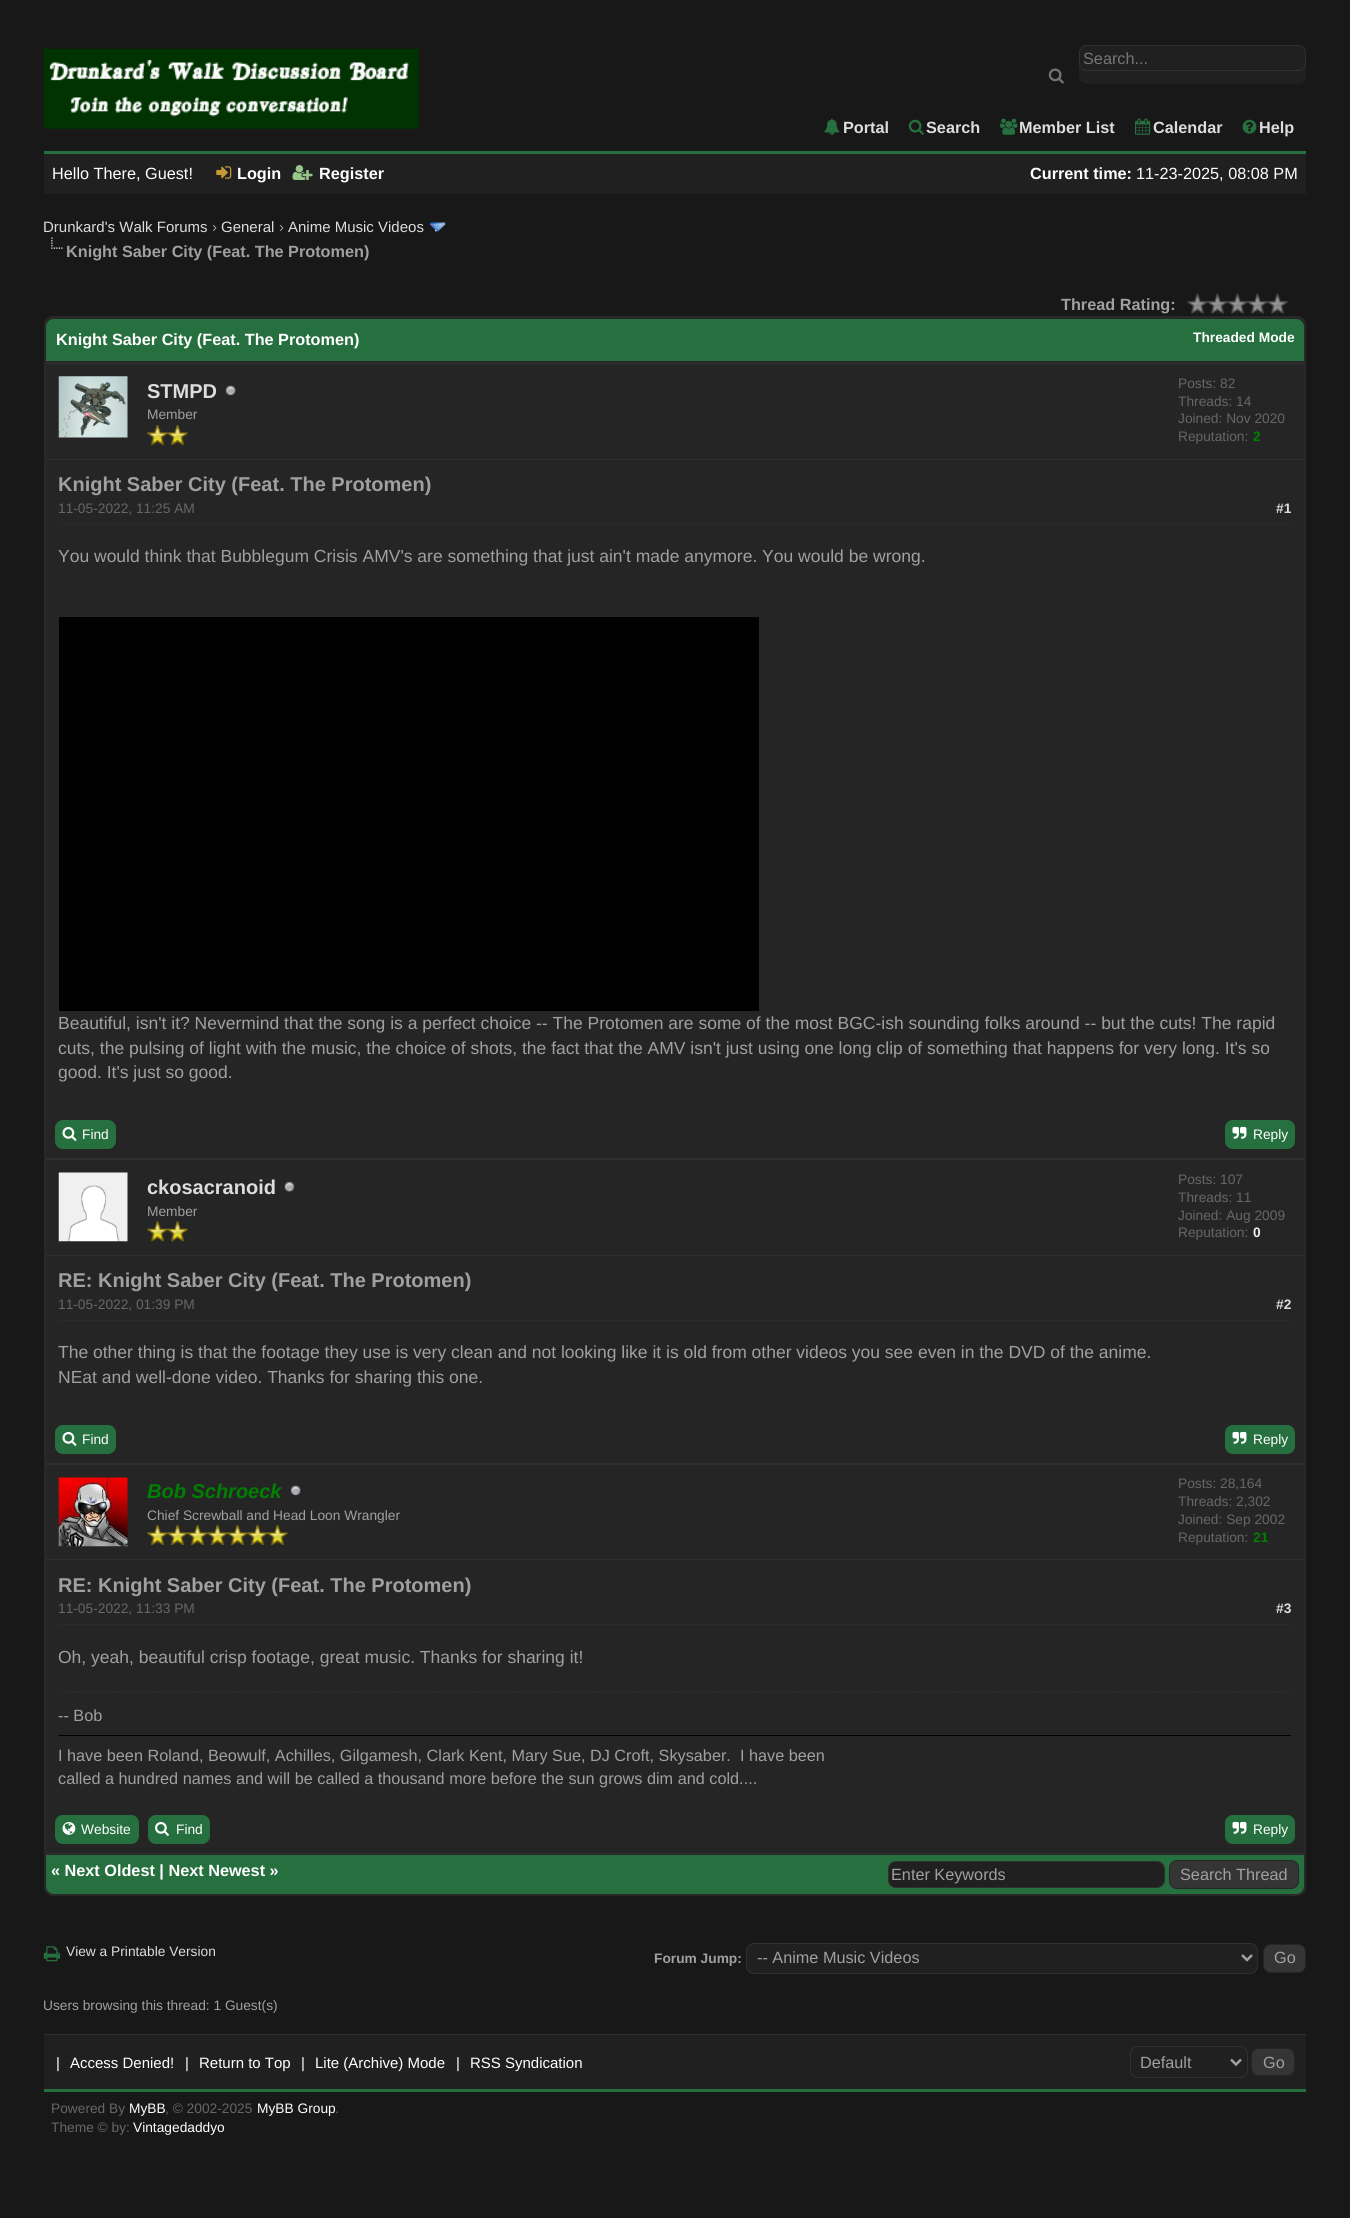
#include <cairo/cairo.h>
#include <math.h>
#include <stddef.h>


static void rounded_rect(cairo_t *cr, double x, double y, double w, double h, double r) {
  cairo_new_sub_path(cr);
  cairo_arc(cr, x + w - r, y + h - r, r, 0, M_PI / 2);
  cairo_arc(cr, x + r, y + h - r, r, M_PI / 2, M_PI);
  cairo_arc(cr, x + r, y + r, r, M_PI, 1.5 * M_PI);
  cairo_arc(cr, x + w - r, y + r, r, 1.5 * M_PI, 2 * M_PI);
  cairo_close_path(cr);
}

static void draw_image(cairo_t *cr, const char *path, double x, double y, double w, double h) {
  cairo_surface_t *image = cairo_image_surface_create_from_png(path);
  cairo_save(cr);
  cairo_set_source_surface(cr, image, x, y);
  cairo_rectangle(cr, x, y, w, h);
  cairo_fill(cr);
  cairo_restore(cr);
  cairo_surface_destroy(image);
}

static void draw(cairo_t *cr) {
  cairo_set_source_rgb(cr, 24 / 255.0, 24 / 255.0, 24 / 255.0);
  cairo_paint(cr);
  cairo_set_source_rgb(cr, 32 / 255.0, 32 / 255.0, 32 / 255.0);
  rounded_rect(cr, 1079, 49, 227, 35, 8);
  cairo_fill(cr);
  rounded_rect(cr, 1079.5, 45.5, 226, 25, 7.5);
  cairo_fill_preserve(cr);
  cairo_set_source_rgb(cr, 48 / 255.0, 48 / 255.0, 48 / 255.0);
  cairo_set_line_width(cr, 1);
  cairo_stroke(cr);
  draw_image(cr, "images/1.png", 1048, 68, 16, 16);
  draw_image(cr, "images/2.png", 43, 48, 376, 81);
  draw_image(cr, "images/3.png", 824, 118, 16, 17);
  draw_image(cr, "images/4.png", 908, 119, 16, 16);
  draw_image(cr, "images/5.png", 1000, 118, 18, 17);
  draw_image(cr, "images/6.png", 1135, 118, 16, 17);
  draw_image(cr, "images/7.png", 1242, 119, 15, 15);
  cairo_set_source_rgb(cr, 32 / 255.0, 32 / 255.0, 32 / 255.0);
  cairo_rectangle(cr, 44, 154, 1262, 40);
  cairo_fill(cr);
  cairo_set_source_rgb(cr, 38 / 255.0, 111 / 255.0, 62 / 255.0);
  cairo_rectangle(cr, 44, 151, 1262, 3);
  cairo_fill(cr);
  draw_image(cr, "images/8.png", 216, 166, 16, 13);
  draw_image(cr, "images/9.png", 292, 165, 21, 15);
  draw_image(cr, "images/10.png", 429, 222, 17, 10);
  draw_image(cr, "images/11.png", 51, 237, 12, 12);
  draw_image(cr, "images/12.png", 1187, 293, 101, 21);
  cairo_set_source_rgb(cr, 40 / 255.0, 40 / 255.0, 40 / 255.0);
  rounded_rect(cr, 44.5, 316.5, 1261, 1579, 8.5);
  cairo_fill_preserve(cr);
  cairo_stroke(cr);
  cairo_set_source_rgb(cr, 38 / 255.0, 111 / 255.0, 62 / 255.0);
  cairo_new_path(cr);
  cairo_move_to(cr, 54, 319);
  cairo_line_to(cr, 1296, 319);
  cairo_curve_to(cr, 1300.5, 319, 1304, 322.5, 1304, 327);
  cairo_line_to(cr, 1304, 361);
  cairo_line_to(cr, 46, 361);
  cairo_line_to(cr, 46, 327);
  cairo_curve_to(cr, 46, 322.5, 49.5, 319, 54, 319);
  cairo_close_path(cr);
  cairo_fill(cr);
  cairo_set_source_rgb(cr, 37 / 255.0, 37 / 255.0, 37 / 255.0);
  cairo_rectangle(cr, 46, 364, 1258, 95);
  cairo_fill(cr);
  cairo_set_source_rgb(cr, 48 / 255.0, 48 / 255.0, 48 / 255.0);
  cairo_rectangle(cr, 46, 363, 1258, 1);
  cairo_fill(cr);
  cairo_rectangle(cr, 46, 459, 1258, 1);
  cairo_fill(cr);
  draw_image(cr, "images/13.png", 58, 376, 70, 62);
  draw_image(cr, "images/14.png", 225, 385, 11, 11);
  draw_image(cr, "images/15.png", 147, 425, 21, 20);
  draw_image(cr, "images/16.png", 167, 425, 21, 20);
  cairo_set_source_rgb(cr, 37 / 255.0, 37 / 255.0, 37 / 255.0);
  cairo_rectangle(cr, 46, 460, 1258, 698);
  cairo_fill(cr);
  cairo_new_path(cr);
  cairo_move_to(cr, 59, 524.5);
  cairo_line_to(cr, 1291, 524.5);
  cairo_set_source_rgb(cr, 48 / 255.0, 48 / 255.0, 48 / 255.0);
  cairo_set_line_width(cr, 1.2);
  cairo_set_dash(cr, (double[]){1.25, 1.25}, 2, 0);
  cairo_stroke(cr);
  cairo_set_source_rgb(cr, 0, 0, 0);
  cairo_rectangle(cr, 59, 617, 700, 394);
  cairo_fill(cr);
  cairo_set_source_rgb(cr, 48 / 255.0, 48 / 255.0, 48 / 255.0);
  cairo_rectangle(cr, 46, 1158, 1258, 2);
  cairo_fill(cr);
  cairo_set_source_rgb(cr, 38 / 255.0, 111 / 255.0, 62 / 255.0);
  rounded_rect(cr, 55.5, 1120.5, 60, 28, 7.5);
  cairo_fill_preserve(cr);
  cairo_set_line_width(cr, 1);
  cairo_set_dash(cr, NULL, 0, 0);
  cairo_stroke(cr);
  draw_image(cr, "images/17.png", 62, 1127, 15, 14);
  rounded_rect(cr, 1225.5, 1120.5, 69, 28, 7.5);
  cairo_fill_preserve(cr);
  cairo_stroke(cr);
  draw_image(cr, "images/18.png", 1232, 1126, 15, 13);
  cairo_set_source_rgb(cr, 37 / 255.0, 37 / 255.0, 37 / 255.0);
  cairo_rectangle(cr, 46, 1160, 1258, 95);
  cairo_fill(cr);
  cairo_set_source_rgb(cr, 48 / 255.0, 48 / 255.0, 48 / 255.0);
  cairo_rectangle(cr, 46, 1255, 1258, 1);
  cairo_fill(cr);
  draw_image(cr, "images/19.png", 58, 1172, 70, 70);
  draw_image(cr, "images/20.png", 284, 1181, 11, 12);
  draw_image(cr, "images/21.png", 147, 1221, 21, 21);
  draw_image(cr, "images/22.png", 167, 1221, 21, 21);
  cairo_set_source_rgb(cr, 37 / 255.0, 37 / 255.0, 37 / 255.0);
  cairo_rectangle(cr, 46, 1256, 1258, 207);
  cairo_fill(cr);
  cairo_new_path(cr);
  cairo_move_to(cr, 59, 1320.5);
  cairo_line_to(cr, 1291, 1320.5);
  cairo_set_source_rgb(cr, 48 / 255.0, 48 / 255.0, 48 / 255.0);
  cairo_set_line_width(cr, 1.2);
  cairo_set_dash(cr, (double[]){1.25, 1.25}, 2, 0);
  cairo_stroke(cr);
  cairo_rectangle(cr, 46, 1463, 1258, 2);
  cairo_fill(cr);
  cairo_set_source_rgb(cr, 38 / 255.0, 111 / 255.0, 62 / 255.0);
  rounded_rect(cr, 55.5, 1425.5, 60, 28, 7.5);
  cairo_fill_preserve(cr);
  cairo_set_line_width(cr, 1);
  cairo_set_dash(cr, NULL, 0, 0);
  cairo_stroke(cr);
  draw_image(cr, "images/17.png", 62, 1432, 15, 14);
  rounded_rect(cr, 1225.5, 1425.5, 69, 28, 7.5);
  cairo_fill_preserve(cr);
  cairo_stroke(cr);
  draw_image(cr, "images/18.png", 1232, 1431, 15, 13);
  cairo_set_source_rgb(cr, 37 / 255.0, 37 / 255.0, 37 / 255.0);
  cairo_rectangle(cr, 46, 1465, 1258, 94);
  cairo_fill(cr);
  cairo_set_source_rgb(cr, 48 / 255.0, 48 / 255.0, 48 / 255.0);
  cairo_rectangle(cr, 46, 1559, 1258, 1);
  cairo_fill(cr);
  draw_image(cr, "images/23.png", 58, 1477, 70, 70);
  draw_image(cr, "images/14.png", 290, 1485, 11, 11);
  draw_image(cr, "images/15.png", 147, 1525, 21, 20);
  draw_image(cr, "images/16.png", 167, 1525, 21, 20);
  draw_image(cr, "images/16.png", 187, 1525, 21, 20);
  draw_image(cr, "images/16.png", 207, 1525, 21, 20);
  draw_image(cr, "images/16.png", 227, 1525, 21, 20);
  draw_image(cr, "images/16.png", 247, 1525, 21, 20);
  draw_image(cr, "images/16.png", 267, 1525, 21, 20);
  cairo_set_source_rgb(cr, 37 / 255.0, 37 / 255.0, 37 / 255.0);
  cairo_rectangle(cr, 46, 1560, 1258, 293);
  cairo_fill(cr);
  cairo_new_path(cr);
  cairo_move_to(cr, 59, 1624.5);
  cairo_line_to(cr, 1291, 1624.5);
  cairo_set_source_rgb(cr, 48 / 255.0, 48 / 255.0, 48 / 255.0);
  cairo_set_line_width(cr, 1.2);
  cairo_set_dash(cr, (double[]){1.25, 1.25}, 2, 0);
  cairo_stroke(cr);
  cairo_new_path(cr);
  cairo_move_to(cr, 59, 1692);
  cairo_line_to(cr, 1291, 1692);
  cairo_stroke(cr);
  cairo_set_source_rgb(cr, 0, 0, 0);
  cairo_rectangle(cr, 59, 1735, 1232, 1);
  cairo_fill(cr);
  cairo_set_source_rgb(cr, 48 / 255.0, 48 / 255.0, 48 / 255.0);
  cairo_rectangle(cr, 46, 1853, 1258, 1);
  cairo_fill(cr);
  cairo_set_source_rgb(cr, 38 / 255.0, 111 / 255.0, 62 / 255.0);
  rounded_rect(cr, 55.5, 1815.5, 83, 28, 7.5);
  cairo_fill_preserve(cr);
  cairo_set_line_width(cr, 1);
  cairo_set_dash(cr, NULL, 0, 0);
  cairo_stroke(cr);
  draw_image(cr, "images/24.png", 62, 1822, 14, 13);
  rounded_rect(cr, 148.5, 1815.5, 61, 28, 7.5);
  cairo_fill_preserve(cr);
  cairo_stroke(cr);
  draw_image(cr, "images/25.png", 155, 1822, 14, 14);
  rounded_rect(cr, 1225.5, 1815.5, 69, 28, 7.5);
  cairo_fill_preserve(cr);
  cairo_stroke(cr);
  draw_image(cr, "images/18.png", 1232, 1821, 15, 13);
  cairo_new_path(cr);
  cairo_move_to(cr, 46, 1855);
  cairo_line_to(cr, 1304, 1855);
  cairo_line_to(cr, 1304, 1886);
  cairo_curve_to(cr, 1304, 1890.5, 1300.5, 1894, 1296, 1894);
  cairo_line_to(cr, 54, 1894);
  cairo_curve_to(cr, 49.5, 1894, 46, 1890.5, 46, 1886);
  cairo_close_path(cr);
  cairo_fill(cr);
  cairo_set_source_rgb(cr, 32 / 255.0, 32 / 255.0, 32 / 255.0);
  rounded_rect(cr, 888.5, 1861.5, 276, 26, 7.5);
  cairo_fill_preserve(cr);
  cairo_set_source_rgb(cr, 48 / 255.0, 48 / 255.0, 48 / 255.0);
  cairo_stroke(cr);
  cairo_set_source_rgb(cr, 53 / 255.0, 53 / 255.0, 53 / 255.0);
  rounded_rect(cr, 1169.5, 1860.5, 129, 28, 7.5);
  cairo_fill_preserve(cr);
  cairo_set_source_rgb(cr, 37 / 255.0, 37 / 255.0, 37 / 255.0);
  cairo_stroke(cr);
  draw_image(cr, "images/26.png", 43, 1946, 17, 16);
  cairo_set_source_rgb(cr, 32 / 255.0, 32 / 255.0, 32 / 255.0);
  rounded_rect(cr, 746.5, 1943.5, 511, 30, 7.5);
  cairo_fill_preserve(cr);
  cairo_set_source_rgb(cr, 48 / 255.0, 48 / 255.0, 48 / 255.0);
  cairo_stroke(cr);
  cairo_new_path(cr);
  cairo_move_to(cr, 1242, 1955);
  cairo_line_to(cr, 1247, 1960);
  cairo_line_to(cr, 1252, 1955);
  cairo_set_source_rgb(cr, 160 / 255.0, 160 / 255.0, 160 / 255.0);
  cairo_set_line_width(cr, 2.5);
  cairo_stroke(cr);
  cairo_set_source_rgb(cr, 53 / 255.0, 53 / 255.0, 53 / 255.0);
  rounded_rect(cr, 1263.5, 1944.5, 42, 28, 7.5);
  cairo_fill_preserve(cr);
  cairo_set_source_rgb(cr, 37 / 255.0, 37 / 255.0, 37 / 255.0);
  cairo_set_line_width(cr, 1);
  cairo_stroke(cr);
  cairo_set_source_rgb(cr, 32 / 255.0, 32 / 255.0, 32 / 255.0);
  cairo_rectangle(cr, 44, 2035, 1262, 54);
  cairo_fill(cr);
  cairo_set_source_rgb(cr, 48 / 255.0, 48 / 255.0, 48 / 255.0);
  cairo_rectangle(cr, 44, 2034, 1262, 1);
  cairo_fill(cr);
  cairo_set_source_rgb(cr, 38 / 255.0, 111 / 255.0, 62 / 255.0);
  cairo_rectangle(cr, 44, 2089, 1262, 3);
  cairo_fill(cr);
  rounded_rect(cr, 1130.5, 2046.5, 117, 31, 7.5);
  cairo_set_source_rgb(cr, 48 / 255.0, 48 / 255.0, 48 / 255.0);
  cairo_stroke(cr);
  cairo_new_path(cr);
  cairo_move_to(cr, 1231, 2059.5);
  cairo_line_to(cr, 1236, 2064.5);
  cairo_line_to(cr, 1241, 2059.5);
  cairo_set_source_rgb(cr, 160 / 255.0, 160 / 255.0, 160 / 255.0);
  cairo_set_line_width(cr, 2.5);
  cairo_stroke(cr);
  cairo_set_source_rgb(cr, 53 / 255.0, 53 / 255.0, 53 / 255.0);
  rounded_rect(cr, 1251.5, 2048.5, 43, 27, 7.5);
  cairo_fill_preserve(cr);
  cairo_set_source_rgb(cr, 37 / 255.0, 37 / 255.0, 37 / 255.0);
  cairo_set_line_width(cr, 1);
  cairo_stroke(cr);
  cairo_select_font_face(cr, "Liberation Sans", CAIRO_FONT_SLANT_NORMAL, CAIRO_FONT_WEIGHT_NORMAL);
  cairo_set_font_size(cr, 16.25);
  cairo_set_source_rgb(cr, 117 / 255.0, 117 / 255.0, 117 / 255.0);
  cairo_move_to(cr, 1083, 64);
  cairo_show_text(cr, "Search...");
  cairo_select_font_face(cr, "Liberation Sans", CAIRO_FONT_SLANT_NORMAL, CAIRO_FONT_WEIGHT_BOLD);
  cairo_set_source_rgb(cr, 221 / 255.0, 221 / 255.0, 221 / 255.0);
  cairo_move_to(cr, 843, 133);
  cairo_show_text(cr, "Portal");
  cairo_move_to(cr, 926, 133);
  cairo_show_text(cr, "Search");
  cairo_move_to(cr, 1019, 133);
  cairo_show_text(cr, "Member List");
  cairo_move_to(cr, 1153, 133);
  cairo_show_text(cr, "Calendar");
  cairo_move_to(cr, 1259, 133);
  cairo_show_text(cr, "Help");
  cairo_select_font_face(cr, "Liberation Sans", CAIRO_FONT_SLANT_NORMAL, CAIRO_FONT_WEIGHT_NORMAL);
  cairo_set_source_rgb(cr, 1, 1, 1);
  cairo_move_to(cr, 52, 179);
  cairo_show_text(cr, "Hello There, Guest!");
  cairo_select_font_face(cr, "Liberation Sans", CAIRO_FONT_SLANT_NORMAL, CAIRO_FONT_WEIGHT_BOLD);
  cairo_move_to(cr, 237, 179);
  cairo_show_text(cr, "Login");
  cairo_move_to(cr, 319, 179);
  cairo_show_text(cr, "Register");
  cairo_move_to(cr, 1030, 179);
  cairo_show_text(cr, "Current time:");
  cairo_select_font_face(cr, "Liberation Sans", CAIRO_FONT_SLANT_NORMAL, CAIRO_FONT_WEIGHT_NORMAL);
  cairo_move_to(cr, 1136, 179);
  cairo_show_text(cr, "11-23-2025, 08:08 PM");
  cairo_set_font_size(cr, 15);
  cairo_set_source_rgb(cr, 221 / 255.0, 221 / 255.0, 221 / 255.0);
  cairo_move_to(cr, 43, 232);
  cairo_show_text(cr, "Drunkard's Walk Forums");
  cairo_set_source_rgb(cr, 160 / 255.0, 160 / 255.0, 160 / 255.0);
  cairo_move_to(cr, 212, 232);
  cairo_show_text(cr, "›");
  cairo_set_source_rgb(cr, 221 / 255.0, 221 / 255.0, 221 / 255.0);
  cairo_move_to(cr, 221, 232);
  cairo_show_text(cr, "General");
  cairo_set_source_rgb(cr, 160 / 255.0, 160 / 255.0, 160 / 255.0);
  cairo_move_to(cr, 279, 232);
  cairo_show_text(cr, "›");
  cairo_set_source_rgb(cr, 221 / 255.0, 221 / 255.0, 221 / 255.0);
  cairo_move_to(cr, 288, 232);
  cairo_show_text(cr, "Anime Music Videos");
  cairo_select_font_face(cr, "Liberation Sans", CAIRO_FONT_SLANT_NORMAL, CAIRO_FONT_WEIGHT_BOLD);
  cairo_set_font_size(cr, 16.25);
  cairo_set_source_rgb(cr, 160 / 255.0, 160 / 255.0, 160 / 255.0);
  cairo_move_to(cr, 66, 257);
  cairo_show_text(cr, "Knight Saber City (Feat. The Protomen)");
  cairo_move_to(cr, 1061, 310);
  cairo_show_text(cr, "Thread Rating:");
  cairo_set_source_rgb(cr, 1, 1, 1);
  cairo_move_to(cr, 56, 345);
  cairo_show_text(cr, "Knight Saber City (Feat. The Protomen)");
  cairo_set_font_size(cr, 13.75);
  cairo_move_to(cr, 1193, 342);
  cairo_show_text(cr, "Threaded Mode");
  cairo_set_font_size(cr, 20);
  cairo_set_source_rgb(cr, 221 / 255.0, 221 / 255.0, 221 / 255.0);
  cairo_move_to(cr, 147, 398);
  cairo_show_text(cr, "STMPD");
  cairo_select_font_face(cr, "Liberation Sans", CAIRO_FONT_SLANT_NORMAL, CAIRO_FONT_WEIGHT_NORMAL);
  cairo_set_font_size(cr, 13.75);
  cairo_set_source_rgb(cr, 160 / 255.0, 160 / 255.0, 160 / 255.0);
  cairo_move_to(cr, 147, 419);
  cairo_show_text(cr, "Member");
  cairo_set_source_rgb(cr, 102 / 255.0, 102 / 255.0, 102 / 255.0);
  cairo_move_to(cr, 1178, 388);
  cairo_show_text(cr, "Posts: 82");
  cairo_move_to(cr, 1178, 406);
  cairo_show_text(cr, "Threads: 14");
  cairo_move_to(cr, 1178, 423);
  cairo_show_text(cr, "Joined: Nov 2020");
  cairo_move_to(cr, 1178, 441);
  cairo_show_text(cr, "Reputation:");
  cairo_select_font_face(cr, "Liberation Sans", CAIRO_FONT_SLANT_NORMAL, CAIRO_FONT_WEIGHT_BOLD);
  cairo_set_source_rgb(cr, 0, 128 / 255.0, 0);
  cairo_move_to(cr, 1253, 441);
  cairo_show_text(cr, "2");
  cairo_set_font_size(cr, 20);
  cairo_set_source_rgb(cr, 160 / 255.0, 160 / 255.0, 160 / 255.0);
  cairo_move_to(cr, 58, 491);
  cairo_show_text(cr, "Knight Saber City (Feat. The Protomen)");
  cairo_select_font_face(cr, "Liberation Sans", CAIRO_FONT_SLANT_NORMAL, CAIRO_FONT_WEIGHT_NORMAL);
  cairo_set_font_size(cr, 13.75);
  cairo_set_source_rgb(cr, 102 / 255.0, 102 / 255.0, 102 / 255.0);
  cairo_move_to(cr, 58, 513);
  cairo_show_text(cr, "11-05-2022, 11:25 AM");
  cairo_select_font_face(cr, "Liberation Sans", CAIRO_FONT_SLANT_NORMAL, CAIRO_FONT_WEIGHT_BOLD);
  cairo_set_source_rgb(cr, 221 / 255.0, 221 / 255.0, 221 / 255.0);
  cairo_move_to(cr, 1276, 513);
  cairo_show_text(cr, "#1");
  cairo_select_font_face(cr, "Liberation Sans", CAIRO_FONT_SLANT_NORMAL, CAIRO_FONT_WEIGHT_NORMAL);
  cairo_set_font_size(cr, 17.5);
  cairo_set_source_rgb(cr, 160 / 255.0, 160 / 255.0, 160 / 255.0);
  cairo_move_to(cr, 58, 562);
  cairo_show_text(cr, "You would think that Bubblegum Crisis AMV's are something that just ain't made anymore. You would be wrong.");
  cairo_move_to(cr, 58, 1029);
  cairo_show_text(cr, "Beautiful, isn't it? Nevermind that the song is a perfect choice -- The Protomen are some of the most BGC-ish sounding folks around -- but the cuts! The rapid");
  cairo_move_to(cr, 58, 1054);
  cairo_show_text(cr, "cuts, the pulsing of light with the music, the choice of shots, the fact that the AMV isn't just using one long clip of something that happens for very long. It's so");
  cairo_move_to(cr, 58, 1078);
  cairo_show_text(cr, "good. It's just so good.");
  cairo_set_font_size(cr, 13.75);
  cairo_set_source_rgb(cr, 1, 1, 1);
  cairo_move_to(cr, 82, 1139);
  cairo_show_text(cr, "Find");
  cairo_move_to(cr, 1253, 1139);
  cairo_show_text(cr, "Reply");
  cairo_select_font_face(cr, "Liberation Sans", CAIRO_FONT_SLANT_NORMAL, CAIRO_FONT_WEIGHT_BOLD);
  cairo_set_font_size(cr, 20);
  cairo_set_source_rgb(cr, 221 / 255.0, 221 / 255.0, 221 / 255.0);
  cairo_move_to(cr, 147, 1194);
  cairo_show_text(cr, "ckosacranoid");
  cairo_select_font_face(cr, "Liberation Sans", CAIRO_FONT_SLANT_NORMAL, CAIRO_FONT_WEIGHT_NORMAL);
  cairo_set_font_size(cr, 13.75);
  cairo_set_source_rgb(cr, 160 / 255.0, 160 / 255.0, 160 / 255.0);
  cairo_move_to(cr, 147, 1216);
  cairo_show_text(cr, "Member");
  cairo_set_source_rgb(cr, 102 / 255.0, 102 / 255.0, 102 / 255.0);
  cairo_move_to(cr, 1178, 1184);
  cairo_show_text(cr, "Posts: 107");
  cairo_move_to(cr, 1178, 1202);
  cairo_show_text(cr, "Threads: 11");
  cairo_move_to(cr, 1178, 1220);
  cairo_show_text(cr, "Joined: Aug 2009");
  cairo_move_to(cr, 1178, 1237);
  cairo_show_text(cr, "Reputation:");
  cairo_select_font_face(cr, "Liberation Sans", CAIRO_FONT_SLANT_NORMAL, CAIRO_FONT_WEIGHT_BOLD);
  cairo_set_source_rgb(cr, 238 / 255.0, 238 / 255.0, 238 / 255.0);
  cairo_move_to(cr, 1253, 1237);
  cairo_show_text(cr, "0");
  cairo_set_font_size(cr, 20);
  cairo_set_source_rgb(cr, 160 / 255.0, 160 / 255.0, 160 / 255.0);
  cairo_move_to(cr, 58, 1287);
  cairo_show_text(cr, "RE: Knight Saber City (Feat. The Protomen)");
  cairo_select_font_face(cr, "Liberation Sans", CAIRO_FONT_SLANT_NORMAL, CAIRO_FONT_WEIGHT_NORMAL);
  cairo_set_font_size(cr, 13.75);
  cairo_set_source_rgb(cr, 102 / 255.0, 102 / 255.0, 102 / 255.0);
  cairo_move_to(cr, 58, 1309);
  cairo_show_text(cr, "11-05-2022, 01:39 PM");
  cairo_select_font_face(cr, "Liberation Sans", CAIRO_FONT_SLANT_NORMAL, CAIRO_FONT_WEIGHT_BOLD);
  cairo_set_source_rgb(cr, 221 / 255.0, 221 / 255.0, 221 / 255.0);
  cairo_move_to(cr, 1276, 1309);
  cairo_show_text(cr, "#2");
  cairo_select_font_face(cr, "Liberation Sans", CAIRO_FONT_SLANT_NORMAL, CAIRO_FONT_WEIGHT_NORMAL);
  cairo_set_font_size(cr, 17.5);
  cairo_set_source_rgb(cr, 160 / 255.0, 160 / 255.0, 160 / 255.0);
  cairo_move_to(cr, 58, 1358);
  cairo_show_text(cr, "The other thing is that the footage they use is very clean and not looking like it is old from other videos you see even in the DVD of the anime.");
  cairo_move_to(cr, 58, 1383);
  cairo_show_text(cr, "NEat and well-done video. Thanks for sharing this one.");
  cairo_set_font_size(cr, 13.75);
  cairo_set_source_rgb(cr, 1, 1, 1);
  cairo_move_to(cr, 82, 1444);
  cairo_show_text(cr, "Find");
  cairo_move_to(cr, 1253, 1444);
  cairo_show_text(cr, "Reply");
  cairo_select_font_face(cr, "Liberation Sans", CAIRO_FONT_SLANT_ITALIC, CAIRO_FONT_WEIGHT_BOLD);
  cairo_set_font_size(cr, 20);
  cairo_set_source_rgb(cr, 0, 128 / 255.0, 0);
  cairo_move_to(cr, 147, 1498);
  cairo_show_text(cr, "Bob Schroeck");
  cairo_select_font_face(cr, "Liberation Sans", CAIRO_FONT_SLANT_NORMAL, CAIRO_FONT_WEIGHT_NORMAL);
  cairo_set_font_size(cr, 13.75);
  cairo_set_source_rgb(cr, 160 / 255.0, 160 / 255.0, 160 / 255.0);
  cairo_move_to(cr, 147, 1520);
  cairo_show_text(cr, "Chief Screwball and Head Loon Wrangler");
  cairo_set_source_rgb(cr, 102 / 255.0, 102 / 255.0, 102 / 255.0);
  cairo_move_to(cr, 1178, 1488);
  cairo_show_text(cr, "Posts: 28,164");
  cairo_move_to(cr, 1178, 1506);
  cairo_show_text(cr, "Threads: 2,302");
  cairo_move_to(cr, 1178, 1524);
  cairo_show_text(cr, "Joined: Sep 2002");
  cairo_move_to(cr, 1178, 1542);
  cairo_show_text(cr, "Reputation:");
  cairo_select_font_face(cr, "Liberation Sans", CAIRO_FONT_SLANT_NORMAL, CAIRO_FONT_WEIGHT_BOLD);
  cairo_set_source_rgb(cr, 0, 128 / 255.0, 0);
  cairo_move_to(cr, 1253, 1542);
  cairo_show_text(cr, "21");
  cairo_set_font_size(cr, 20);
  cairo_set_source_rgb(cr, 160 / 255.0, 160 / 255.0, 160 / 255.0);
  cairo_move_to(cr, 58, 1592);
  cairo_show_text(cr, "RE: Knight Saber City (Feat. The Protomen)");
  cairo_select_font_face(cr, "Liberation Sans", CAIRO_FONT_SLANT_NORMAL, CAIRO_FONT_WEIGHT_NORMAL);
  cairo_set_font_size(cr, 13.75);
  cairo_set_source_rgb(cr, 102 / 255.0, 102 / 255.0, 102 / 255.0);
  cairo_move_to(cr, 58, 1613);
  cairo_show_text(cr, "11-05-2022, 11:33 PM");
  cairo_select_font_face(cr, "Liberation Sans", CAIRO_FONT_SLANT_NORMAL, CAIRO_FONT_WEIGHT_BOLD);
  cairo_set_source_rgb(cr, 221 / 255.0, 221 / 255.0, 221 / 255.0);
  cairo_move_to(cr, 1276, 1613);
  cairo_show_text(cr, "#3");
  cairo_select_font_face(cr, "Liberation Sans", CAIRO_FONT_SLANT_NORMAL, CAIRO_FONT_WEIGHT_NORMAL);
  cairo_set_font_size(cr, 17.5);
  cairo_set_source_rgb(cr, 160 / 255.0, 160 / 255.0, 160 / 255.0);
  cairo_move_to(cr, 58, 1663);
  cairo_show_text(cr, "Oh, yeah, beautiful crisp footage, great music. Thanks for sharing it!");
  cairo_set_font_size(cr, 16.25);
  cairo_move_to(cr, 58, 1721);
  cairo_show_text(cr, "-- Bob");
  cairo_move_to(cr, 58, 1761);
  cairo_show_text(cr, "I have been Roland, Beowulf, Achilles, Gilgamesh, Clark Kent, Mary Sue, DJ Croft, Skysaber.  I have been");
  cairo_move_to(cr, 58, 1784);
  cairo_show_text(cr, "called a hundred names and will be called a thousand more before the sun grows dim and cold....");
  cairo_set_font_size(cr, 13.75);
  cairo_set_source_rgb(cr, 1, 1, 1);
  cairo_move_to(cr, 81, 1834);
  cairo_show_text(cr, "Website");
  cairo_move_to(cr, 176, 1834);
  cairo_show_text(cr, "Find");
  cairo_move_to(cr, 1253, 1834);
  cairo_show_text(cr, "Reply");
  cairo_select_font_face(cr, "Liberation Sans", CAIRO_FONT_SLANT_NORMAL, CAIRO_FONT_WEIGHT_BOLD);
  cairo_set_font_size(cr, 16.25);
  cairo_move_to(cr, 51, 1876);
  cairo_show_text(cr, "« Next Oldest | Next Newest »");
  cairo_select_font_face(cr, "Liberation Sans", CAIRO_FONT_SLANT_NORMAL, CAIRO_FONT_WEIGHT_NORMAL);
  cairo_set_source_rgb(cr, 160 / 255.0, 160 / 255.0, 160 / 255.0);
  cairo_move_to(cr, 891, 1880);
  cairo_show_text(cr, "Enter Keywords");
  cairo_move_to(cr, 1180, 1880);
  cairo_show_text(cr, "Search Thread");
  cairo_set_font_size(cr, 13.75);
  cairo_set_source_rgb(cr, 221 / 255.0, 221 / 255.0, 221 / 255.0);
  cairo_move_to(cr, 66, 1956);
  cairo_show_text(cr, "View a Printable Version");
  cairo_select_font_face(cr, "Liberation Sans", CAIRO_FONT_SLANT_NORMAL, CAIRO_FONT_WEIGHT_BOLD);
  cairo_set_source_rgb(cr, 160 / 255.0, 160 / 255.0, 160 / 255.0);
  cairo_move_to(cr, 654, 1963);
  cairo_show_text(cr, "Forum Jump:");
  cairo_select_font_face(cr, "Liberation Sans", CAIRO_FONT_SLANT_NORMAL, CAIRO_FONT_WEIGHT_NORMAL);
  cairo_set_font_size(cr, 16.25);
  cairo_move_to(cr, 757, 1963);
  cairo_show_text(cr, "-- Anime Music Videos");
  cairo_move_to(cr, 1274, 1963);
  cairo_show_text(cr, "Go");
  cairo_set_font_size(cr, 13.75);
  cairo_move_to(cr, 43, 2010);
  cairo_show_text(cr, "Users browsing this thread: 1 Guest(s)");
  cairo_set_font_size(cr, 15);
  cairo_set_source_rgb(cr, 1, 1, 1);
  cairo_move_to(cr, 56, 2068);
  cairo_show_text(cr, "|");
  cairo_move_to(cr, 70, 2068);
  cairo_show_text(cr, "Access Denied!");
  cairo_move_to(cr, 185, 2068);
  cairo_show_text(cr, "|");
  cairo_move_to(cr, 199, 2068);
  cairo_show_text(cr, "Return to Top");
  cairo_move_to(cr, 301, 2068);
  cairo_show_text(cr, "|");
  cairo_move_to(cr, 315, 2068);
  cairo_show_text(cr, "Lite (Archive) Mode");
  cairo_move_to(cr, 456, 2068);
  cairo_show_text(cr, "|");
  cairo_move_to(cr, 470, 2068);
  cairo_show_text(cr, "RSS Syndication");
  cairo_set_font_size(cr, 16.25);
  cairo_set_source_rgb(cr, 160 / 255.0, 160 / 255.0, 160 / 255.0);
  cairo_move_to(cr, 1140, 2068);
  cairo_show_text(cr, "Default");
  cairo_move_to(cr, 1263, 2068);
  cairo_show_text(cr, "Go");
  cairo_set_font_size(cr, 13.75);
  cairo_set_source_rgb(cr, 102 / 255.0, 102 / 255.0, 102 / 255.0);
  cairo_move_to(cr, 51, 2113);
  cairo_show_text(cr, "Powered By");
  cairo_set_source_rgb(cr, 1, 1, 1);
  cairo_move_to(cr, 129, 2113);
  cairo_show_text(cr, "MyBB");
  cairo_set_source_rgb(cr, 102 / 255.0, 102 / 255.0, 102 / 255.0);
  cairo_move_to(cr, 165, 2113);
  cairo_show_text(cr, ", © 2002-2025");
  cairo_set_source_rgb(cr, 1, 1, 1);
  cairo_move_to(cr, 257, 2113);
  cairo_show_text(cr, "MyBB Group");
  cairo_set_source_rgb(cr, 102 / 255.0, 102 / 255.0, 102 / 255.0);
  cairo_move_to(cr, 335, 2113);
  cairo_show_text(cr, ".");
  cairo_move_to(cr, 51, 2132);
  cairo_show_text(cr, "Theme © by:");
  cairo_set_source_rgb(cr, 1, 1, 1);
  cairo_move_to(cr, 133, 2132);
  cairo_show_text(cr, "Vintagedaddyo");
}

int main(void) {
  cairo_surface_t *surface = cairo_image_surface_create(CAIRO_FORMAT_RGB24, 1350, 2218);
  cairo_t *cr = cairo_create(surface);
  cairo_font_options_t *options = cairo_font_options_create();
  cairo_font_options_set_hint_metrics(options, CAIRO_HINT_METRICS_OFF);
  cairo_font_options_set_hint_style(options, CAIRO_HINT_STYLE_NONE);
  cairo_set_font_options(cr, options);
  cairo_set_miter_limit(cr, 4);
  draw(cr);
  cairo_surface_write_to_png(surface, "out.png");
  cairo_font_options_destroy(options);
  cairo_destroy(cr);
  cairo_surface_destroy(surface);
  return 0;
}
